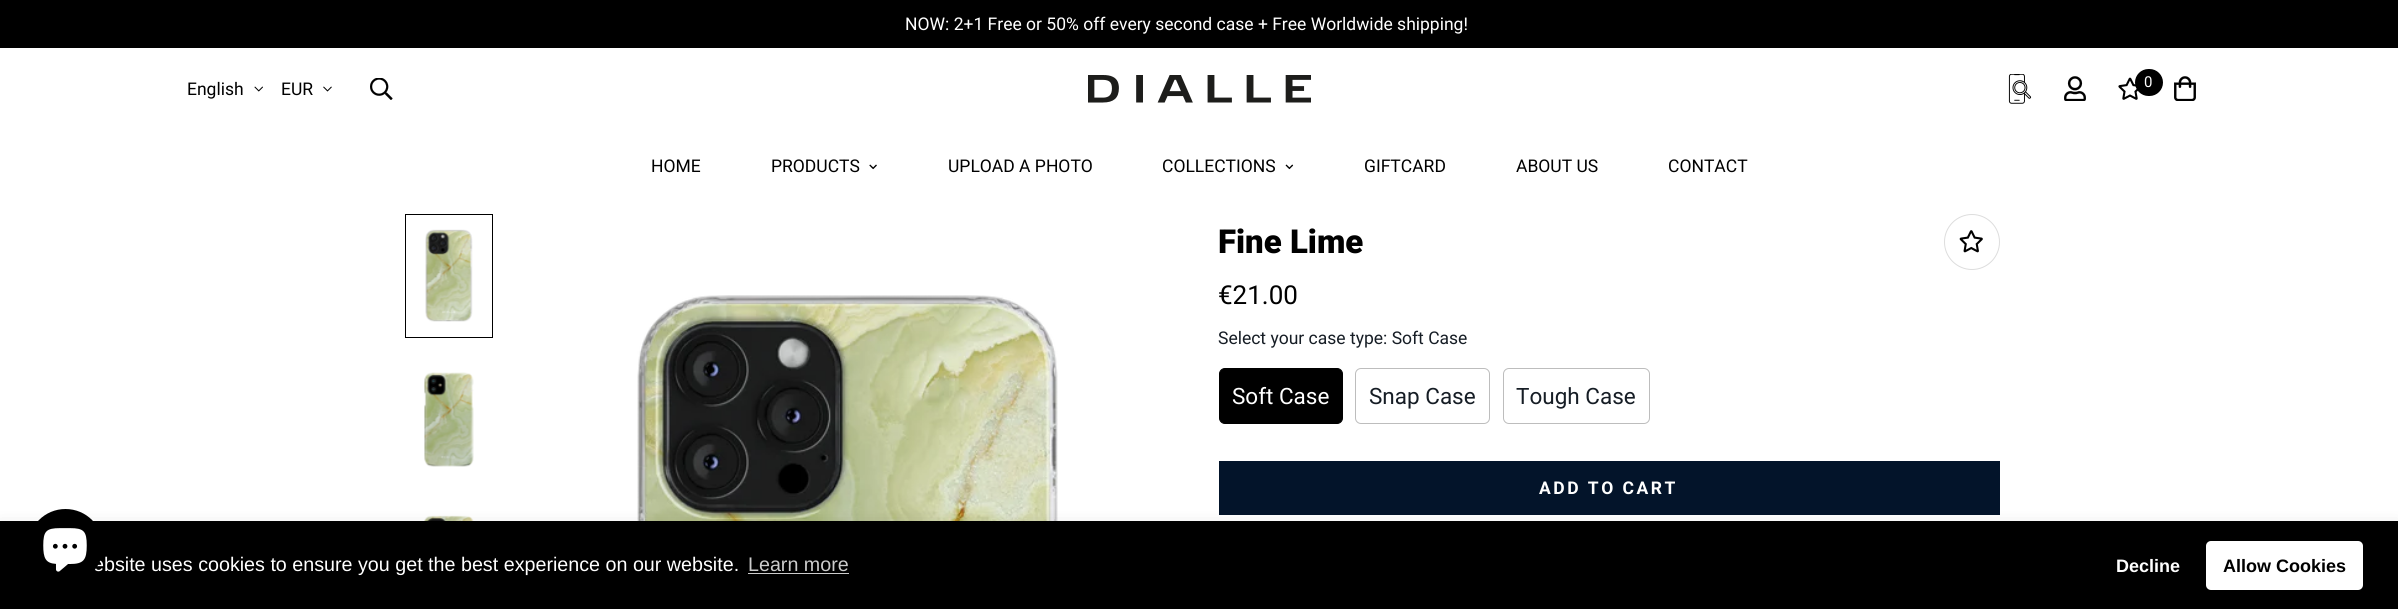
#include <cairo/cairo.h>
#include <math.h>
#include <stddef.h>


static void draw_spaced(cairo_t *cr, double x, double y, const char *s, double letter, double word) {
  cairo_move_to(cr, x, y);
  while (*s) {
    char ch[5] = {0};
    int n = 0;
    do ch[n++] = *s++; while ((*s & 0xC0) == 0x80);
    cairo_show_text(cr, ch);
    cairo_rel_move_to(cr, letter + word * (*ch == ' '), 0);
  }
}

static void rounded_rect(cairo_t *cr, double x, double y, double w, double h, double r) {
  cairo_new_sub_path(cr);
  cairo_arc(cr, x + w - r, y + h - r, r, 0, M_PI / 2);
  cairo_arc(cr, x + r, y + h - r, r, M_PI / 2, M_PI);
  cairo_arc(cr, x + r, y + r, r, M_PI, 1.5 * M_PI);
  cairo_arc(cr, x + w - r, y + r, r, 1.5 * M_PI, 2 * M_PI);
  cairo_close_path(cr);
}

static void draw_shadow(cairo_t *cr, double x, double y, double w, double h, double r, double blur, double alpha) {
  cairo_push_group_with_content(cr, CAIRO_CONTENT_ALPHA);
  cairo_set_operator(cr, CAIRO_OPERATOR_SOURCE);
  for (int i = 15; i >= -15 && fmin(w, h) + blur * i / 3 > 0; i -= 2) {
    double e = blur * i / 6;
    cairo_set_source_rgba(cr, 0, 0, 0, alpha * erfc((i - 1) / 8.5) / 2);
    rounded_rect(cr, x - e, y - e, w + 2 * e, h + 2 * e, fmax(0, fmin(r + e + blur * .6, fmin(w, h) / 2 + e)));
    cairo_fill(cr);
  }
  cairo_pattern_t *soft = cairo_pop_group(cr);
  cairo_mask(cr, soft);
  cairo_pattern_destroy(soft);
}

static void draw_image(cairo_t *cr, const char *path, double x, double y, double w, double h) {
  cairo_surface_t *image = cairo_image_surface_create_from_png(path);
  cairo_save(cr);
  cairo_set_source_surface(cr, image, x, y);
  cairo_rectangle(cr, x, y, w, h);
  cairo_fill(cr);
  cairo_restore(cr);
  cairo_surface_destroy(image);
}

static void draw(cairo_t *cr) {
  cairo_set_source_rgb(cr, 1, 1, 1);
  cairo_paint(cr);
  cairo_set_source_rgb(cr, 0, 0, 0);
  cairo_rectangle(cr, 0, 0, 2398, 48);
  cairo_fill(cr);
  draw_image(cr, "images/1.png", 254, 86, 9, 6);
  draw_image(cr, "images/2.png", 323, 86, 9, 6);
  draw_image(cr, "images/3.png", 370, 78, 23, 22);
  draw_image(cr, "images/4.png", 1088, 75, 223, 28);
  draw_image(cr, "images/5.png", 2008, 74, 24, 30);
  draw_image(cr, "images/6.png", 2064, 76, 22, 25);
  draw_image(cr, "images/7.png", 2118, 77, 20, 23);
  rounded_rect(cr, 2135, 69, 28, 27, 13.5);
  cairo_fill(cr);
  draw_image(cr, "images/8.png", 2174, 76, 22, 25);
  draw_image(cr, "images/9.png", 869, 164, 8, 6);
  draw_image(cr, "images/10.png", 1285, 164, 9, 6);
  cairo_rectangle(cr, 405.5, 214.5, 87, 123);
  cairo_set_line_width(cr, 1);
  cairo_stroke(cr);
  draw_image(cr, "images/11.png", 425, 229, 48, 93);
  draw_image(cr, "images/12.png", 424, 372, 50, 95);
  draw_image(cr, "images/13.png", 424, 515, 50, 6);
  draw_image(cr, "images/14.png", 637, 295, 421, 226);
  cairo_arc(cr, 1972, 242, 27.5, 0, 2 * M_PI);
  cairo_set_source_rgb(cr, 221 / 255.0, 221 / 255.0, 221 / 255.0);
  cairo_stroke(cr);
  draw_image(cr, "images/15.png", 1959, 230, 24, 23);
  cairo_set_source_rgb(cr, 0, 0, 0);
  rounded_rect(cr, 1219.5, 368.5, 123, 55, 5.5);
  cairo_fill_preserve(cr);
  cairo_stroke(cr);
  rounded_rect(cr, 1355.5, 368.5, 134, 55, 5.5);
  cairo_set_source_rgb(cr, 189 / 255.0, 189 / 255.0, 189 / 255.0);
  cairo_stroke(cr);
  rounded_rect(cr, 1503.5, 368.5, 146, 55, 5.5);
  cairo_stroke(cr);
  cairo_set_source_rgb(cr, 3 / 255.0, 20 / 255.0, 42 / 255.0);
  cairo_rectangle(cr, 1219, 461, 781, 54);
  cairo_fill(cr);
  cairo_set_source_rgb(cr, 0, 0, 0);
  draw_shadow(cr, 0, 528, 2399, 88, 0, 9.5, 0.15);
  cairo_set_source_rgb(cr, 0, 0, 0);
  cairo_rectangle(cr, 0, 521, 2398, 88);
  cairo_fill(cr);
  cairo_set_source_rgb(cr, 204 / 255.0, 204 / 255.0, 204 / 255.0);
  cairo_rectangle(cr, 748, 573, 101, 1);
  cairo_fill(cr);
  cairo_set_source_rgb(cr, 1, 1, 1);
  rounded_rect(cr, 2206, 541, 157, 49, 5);
  cairo_fill(cr);
  cairo_select_font_face(cr, "Roboto", CAIRO_FONT_SLANT_NORMAL, CAIRO_FONT_WEIGHT_NORMAL);
  cairo_set_font_size(cr, 17.5);
  cairo_move_to(cr, 905, 30);
  cairo_show_text(cr, "NOW: 2+1 Free or 50% off every second case + Free Worldwide shipping!");
  cairo_set_source_rgb(cr, 0, 0, 0);
  cairo_move_to(cr, 187, 95);
  cairo_show_text(cr, "English");
  cairo_move_to(cr, 281, 95);
  cairo_show_text(cr, "EUR");
  cairo_set_font_size(cr, 15);
  cairo_set_source_rgb(cr, 1, 1, 1);
  cairo_move_to(cr, 2144, 87);
  cairo_show_text(cr, "0");
  cairo_set_font_size(cr, 17.5);
  cairo_set_source_rgb(cr, 0, 0, 0);
  cairo_move_to(cr, 651, 172);
  cairo_show_text(cr, "HOME");
  cairo_move_to(cr, 771, 172);
  cairo_show_text(cr, "PRODUCTS");
  cairo_move_to(cr, 948, 172);
  cairo_show_text(cr, "UPLOAD A PHOTO");
  cairo_move_to(cr, 1162, 172);
  cairo_show_text(cr, "COLLECTIONS");
  cairo_move_to(cr, 1364, 172);
  cairo_show_text(cr, "GIFTCARD");
  cairo_move_to(cr, 1516, 172);
  cairo_show_text(cr, "ABOUT US");
  cairo_move_to(cr, 1668, 172);
  cairo_show_text(cr, "CONTACT");
  cairo_select_font_face(cr, "Roboto Black", CAIRO_FONT_SLANT_NORMAL, CAIRO_FONT_WEIGHT_NORMAL);
  cairo_set_font_size(cr, 33);
  cairo_move_to(cr, 1218, 253);
  cairo_show_text(cr, "Fine Lime");
  cairo_select_font_face(cr, "Roboto", CAIRO_FONT_SLANT_NORMAL, CAIRO_FONT_WEIGHT_NORMAL);
  cairo_set_font_size(cr, 26);
  cairo_move_to(cr, 1218, 304);
  cairo_show_text(cr, "€21.00");
  cairo_set_font_size(cr, 17.5);
  cairo_set_source_rgb(cr, 22 / 255.0, 29 / 255.0, 37 / 255.0);
  cairo_move_to(cr, 1218, 344);
  cairo_show_text(cr, "Select your case type: Soft Case");
  cairo_set_font_size(cr, 22.5);
  cairo_set_source_rgb(cr, 1, 1, 1);
  cairo_move_to(cr, 1232, 404);
  cairo_show_text(cr, "Soft Case");
  cairo_set_source_rgb(cr, 22 / 255.0, 29 / 255.0, 37 / 255.0);
  cairo_move_to(cr, 1369, 404);
  cairo_show_text(cr, "Snap Case");
  cairo_move_to(cr, 1516, 404);
  cairo_show_text(cr, "Tough Case");
  cairo_select_font_face(cr, "Roboto", CAIRO_FONT_SLANT_NORMAL, CAIRO_FONT_WEIGHT_BOLD);
  cairo_set_font_size(cr, 17.5);
  cairo_set_source_rgb(cr, 1, 1, 1);
  draw_spaced(cr, 1539, 494, "ADD TO CART", 2.5, 0);
  cairo_select_font_face(cr, "Liberation Sans", CAIRO_FONT_SLANT_NORMAL, CAIRO_FONT_WEIGHT_NORMAL);
  cairo_set_font_size(cr, 19.7);
  cairo_move_to(cr, 93, 571);
  cairo_show_text(cr, "ebsite uses cookies to ensure you get the best experience on our website.");
  cairo_set_source_rgb(cr, 0, 0, 0);
  cairo_new_path(cr);
  cairo_arc(cr, 65.5, 546.5, 37.5, 0, 2 * M_PI);
  cairo_fill(cr);
  draw_image(cr, "images/16.png", 43, 528, 44, 44);
  cairo_set_source_rgb(cr, 204 / 255.0, 204 / 255.0, 204 / 255.0);
  cairo_move_to(cr, 748, 571);
  cairo_show_text(cr, "Learn more");
  cairo_select_font_face(cr, "Liberation Sans", CAIRO_FONT_SLANT_NORMAL, CAIRO_FONT_WEIGHT_BOLD);
  cairo_set_font_size(cr, 18);
  cairo_set_source_rgb(cr, 1, 1, 1);
  cairo_move_to(cr, 2116, 572);
  cairo_show_text(cr, "Decline");
  cairo_set_source_rgb(cr, 0, 0, 0);
  cairo_move_to(cr, 2223, 572);
  cairo_show_text(cr, "Allow Cookies");
}

int main(void) {
  cairo_surface_t *surface = cairo_image_surface_create(CAIRO_FORMAT_RGB24, 2398, 609);
  cairo_t *cr = cairo_create(surface);
  cairo_font_options_t *options = cairo_font_options_create();
  cairo_font_options_set_hint_metrics(options, CAIRO_HINT_METRICS_OFF);
  cairo_font_options_set_hint_style(options, CAIRO_HINT_STYLE_NONE);
  cairo_set_font_options(cr, options);
  cairo_set_miter_limit(cr, 4);
  draw(cr);
  cairo_surface_write_to_png(surface, "out.png");
  cairo_font_options_destroy(options);
  cairo_destroy(cr);
  cairo_surface_destroy(surface);
  return 0;
}
